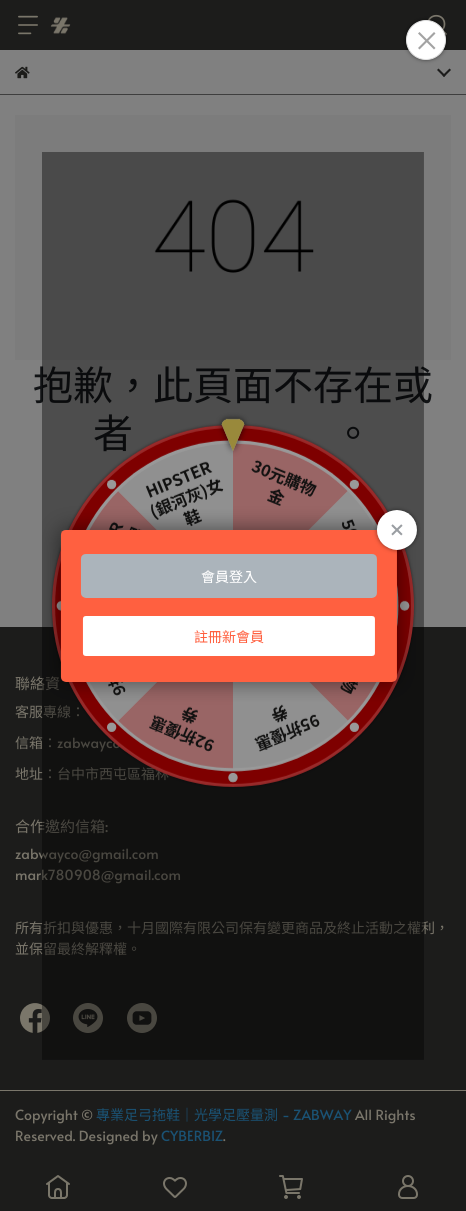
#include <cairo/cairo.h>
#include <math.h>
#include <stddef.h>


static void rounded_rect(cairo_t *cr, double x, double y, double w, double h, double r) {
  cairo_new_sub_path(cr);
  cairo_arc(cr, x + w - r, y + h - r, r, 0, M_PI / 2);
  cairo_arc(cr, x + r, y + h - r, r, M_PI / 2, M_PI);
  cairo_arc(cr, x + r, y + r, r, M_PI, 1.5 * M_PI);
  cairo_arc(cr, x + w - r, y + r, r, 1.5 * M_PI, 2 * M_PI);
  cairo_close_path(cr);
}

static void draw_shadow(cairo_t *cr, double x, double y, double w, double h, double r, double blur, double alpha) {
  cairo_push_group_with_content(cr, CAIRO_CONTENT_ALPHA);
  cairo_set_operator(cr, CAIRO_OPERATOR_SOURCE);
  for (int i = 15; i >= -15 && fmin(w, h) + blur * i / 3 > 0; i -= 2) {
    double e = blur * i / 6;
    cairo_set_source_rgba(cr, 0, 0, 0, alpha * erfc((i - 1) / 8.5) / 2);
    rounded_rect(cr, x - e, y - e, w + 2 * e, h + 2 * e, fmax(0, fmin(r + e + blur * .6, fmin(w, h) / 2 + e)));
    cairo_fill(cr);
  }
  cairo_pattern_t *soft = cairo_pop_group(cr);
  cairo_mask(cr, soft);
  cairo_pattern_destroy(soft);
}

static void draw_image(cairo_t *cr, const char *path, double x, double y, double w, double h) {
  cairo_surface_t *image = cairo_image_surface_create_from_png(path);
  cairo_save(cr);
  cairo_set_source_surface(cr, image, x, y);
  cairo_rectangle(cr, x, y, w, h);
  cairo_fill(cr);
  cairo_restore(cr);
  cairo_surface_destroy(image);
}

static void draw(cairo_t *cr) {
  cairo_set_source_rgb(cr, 128 / 255.0, 128 / 255.0, 128 / 255.0);
  cairo_paint(cr);
  cairo_set_source_rgb(cr, 28 / 255.0, 28 / 255.0, 27 / 255.0);
  cairo_rectangle(cr, 0, 0, 466, 50);
  cairo_fill(cr);
  draw_image(cr, "images/1.png", 18, 15, 20, 20);
  draw_image(cr, "images/2.png", 50, 17, 21, 17);
  cairo_new_path(cr);
  cairo_move_to(cr, 444.5, 24);
  cairo_curve_to(cr, 444.5, 35, 428, 35, 428, 24);
  cairo_curve_to(cr, 428, 13, 444.5, 13, 444.5, 24);
  cairo_close_path(cr);
  cairo_move_to(cr, 443, 31);
  cairo_line_to(cr, 446, 34);
  cairo_set_source_rgb(cr, 122 / 255.0, 118 / 255.0, 107 / 255.0);
  cairo_set_line_width(cr, 1.7);
  cairo_set_line_cap(cr, CAIRO_LINE_CAP_ROUND);
  cairo_set_line_join(cr, CAIRO_LINE_JOIN_ROUND);
  cairo_stroke(cr);
  cairo_set_source_rgb(cr, 28 / 255.0, 28 / 255.0, 27 / 255.0);
  cairo_rectangle(cr, 0, 627, 466, 584);
  cairo_fill(cr);
  draw_image(cr, "images/3.png", 46, 1175, 24, 24);
  draw_image(cr, "images/4.png", 163, 1177, 24, 21);
  draw_image(cr, "images/5.png", 279, 1175, 24, 24);
  draw_image(cr, "images/6.png", 398, 1175, 20, 24);
  cairo_set_source_rgb(cr, 0, 0, 0);
  draw_shadow(cr, 406, 20, 40, 40, 20, 2, 0.5);
  cairo_set_source_rgb(cr, 1, 1, 1);
  cairo_arc(cr, 426, 40, 19.5, 0, 2 * M_PI);
  cairo_fill_preserve(cr);
  cairo_set_source_rgb(cr, 226 / 255.0, 226 / 255.0, 226 / 255.0);
  cairo_set_line_width(cr, 1);
  cairo_set_line_cap(cr, CAIRO_LINE_CAP_BUTT);
  cairo_set_line_join(cr, CAIRO_LINE_JOIN_MITER);
  cairo_stroke(cr);
  cairo_set_source_rgb(cr, 163 / 255.0, 163 / 255.0, 163 / 255.0);
  cairo_new_path(cr);
  cairo_move_to(cr, 419.5, 32);
  cairo_line_to(cr, 435.5, 48);
  cairo_line_to(cr, 434, 49.5);
  cairo_line_to(cr, 418, 33.5);
  cairo_close_path(cr);
  cairo_fill(cr);
  cairo_new_path(cr);
  cairo_move_to(cr, 418, 48);
  cairo_line_to(cr, 434, 32);
  cairo_line_to(cr, 435.5, 33.5);
  cairo_line_to(cr, 419.5, 49.5);
  cairo_close_path(cr);
  cairo_fill(cr);
  cairo_set_source_rgb(cr, 62 / 255.0, 62 / 255.0, 62 / 255.0);
  cairo_rectangle(cr, 0, 94, 466, 1);
  cairo_fill(cr);
  draw_image(cr, "images/8.png", 15, 66, 15, 13);
  cairo_set_source_rgb(cr, 28 / 255.0, 28 / 255.0, 27 / 255.0);
  cairo_new_path(cr);
  cairo_move_to(cr, 442.5, 75.5);
  cairo_line_to(cr, 449.5, 68.5);
  cairo_line_to(cr, 451, 70);
  cairo_line_to(cr, 444, 77);
  cairo_close_path(cr);
  cairo_fill(cr);
  cairo_new_path(cr);
  cairo_move_to(cr, 437, 70);
  cairo_line_to(cr, 438.5, 68.5);
  cairo_line_to(cr, 445.5, 75.5);
  cairo_line_to(cr, 444, 77);
  cairo_close_path(cr);
  cairo_fill(cr);
  draw_image(cr, "images/9.png", 15, 115, 436, 245);
  draw_image(cr, "images/10.png", 20, 1003, 30, 30);
  draw_image(cr, "images/11.png", 73, 1003, 30, 30);
  draw_image(cr, "images/12.png", 127, 1003, 30, 30);
  cairo_set_source_rgb(cr, 122 / 255.0, 118 / 255.0, 107 / 255.0);
  cairo_rectangle(cr, 0, 1090, 466, 1);
  cairo_fill(cr);
  cairo_select_font_face(cr, "Noto Sans CJK TC", CAIRO_FONT_SLANT_NORMAL, CAIRO_FONT_WEIGHT_NORMAL);
  cairo_set_font_size(cr, 40);
  cairo_set_source_rgb(cr, 17 / 255.0, 19 / 255.0, 21 / 255.0);
  cairo_move_to(cr, 33, 400);
  cairo_show_text(cr, "抱歉，此頁面不存在或");
  cairo_move_to(cr, 93, 448);
  cairo_show_text(cr, "者");
  cairo_move_to(cr, 333, 448);
  cairo_show_text(cr, "。");
  cairo_set_font_size(cr, 15);
  cairo_set_source_rgb(cr, 122 / 255.0, 118 / 255.0, 107 / 255.0);
  cairo_move_to(cr, 15, 689);
  cairo_show_text(cr, "聯絡資");
  cairo_set_font_size(cr, 14);
  cairo_move_to(cr, 15, 717);
  cairo_show_text(cr, "客服專線：");
  cairo_move_to(cr, 15, 748);
  cairo_show_text(cr, "信箱：");
  cairo_select_font_face(cr, "Alata", CAIRO_FONT_SLANT_NORMAL, CAIRO_FONT_WEIGHT_NORMAL);
  cairo_move_to(cr, 57, 748);
  cairo_show_text(cr, "zabwayco");
  cairo_select_font_face(cr, "Noto Sans CJK TC", CAIRO_FONT_SLANT_NORMAL, CAIRO_FONT_WEIGHT_NORMAL);
  cairo_move_to(cr, 15, 779);
  cairo_show_text(cr, "地址：台中市西屯區福林");
  cairo_set_font_size(cr, 15);
  cairo_move_to(cr, 15, 832);
  cairo_show_text(cr, "合作邀約信箱");
  cairo_select_font_face(cr, "Alata", CAIRO_FONT_SLANT_NORMAL, CAIRO_FONT_WEIGHT_NORMAL);
  cairo_move_to(cr, 105, 832);
  cairo_show_text(cr, ":");
  cairo_set_font_size(cr, 14);
  cairo_move_to(cr, 15, 859);
  cairo_show_text(cr, "zabwayco@gmail.com");
  cairo_move_to(cr, 15, 880);
  cairo_show_text(cr, "mark780908@gmail.com");
  cairo_select_font_face(cr, "Noto Sans CJK TC", CAIRO_FONT_SLANT_NORMAL, CAIRO_FONT_WEIGHT_NORMAL);
  cairo_move_to(cr, 15, 933);
  cairo_show_text(cr, "所有折扣與優惠，十月國際有限公司保有變更商品及終止活動之權利，");
  cairo_move_to(cr, 15, 954);
  cairo_show_text(cr, "並保留最終解釋權。");
  draw_image(cr, "images/7.png", 42, 152, 382, 908);
  cairo_select_font_face(cr, "Alata", CAIRO_FONT_SLANT_NORMAL, CAIRO_FONT_WEIGHT_NORMAL);
  cairo_move_to(cr, 15, 1120);
  cairo_show_text(cr, "Copyright ©");
  cairo_select_font_face(cr, "Noto Sans CJK TC", CAIRO_FONT_SLANT_NORMAL, CAIRO_FONT_WEIGHT_NORMAL);
  cairo_set_source_rgb(cr, 26 / 255.0, 82 / 255.0, 116 / 255.0);
  cairo_move_to(cr, 96, 1120);
  cairo_show_text(cr, "專業足弓拖鞋｜光學足壓量測");
  cairo_select_font_face(cr, "Alata", CAIRO_FONT_SLANT_NORMAL, CAIRO_FONT_WEIGHT_NORMAL);
  cairo_move_to(cr, 282, 1120);
  cairo_show_text(cr, "- ZABWAY");
  cairo_set_source_rgb(cr, 122 / 255.0, 118 / 255.0, 107 / 255.0);
  cairo_move_to(cr, 355, 1120);
  cairo_show_text(cr, "All Rights");
  cairo_move_to(cr, 15, 1141);
  cairo_show_text(cr, "Reserved. Designed by");
  cairo_set_source_rgb(cr, 26 / 255.0, 82 / 255.0, 116 / 255.0);
  cairo_move_to(cr, 161, 1141);
  cairo_show_text(cr, "CYBERBIZ");
  cairo_set_source_rgb(cr, 122 / 255.0, 118 / 255.0, 107 / 255.0);
  cairo_move_to(cr, 223, 1141);
  cairo_show_text(cr, ".");
}

int main(void) {
  cairo_surface_t *surface = cairo_image_surface_create(CAIRO_FORMAT_RGB24, 466, 1211);
  cairo_t *cr = cairo_create(surface);
  cairo_font_options_t *options = cairo_font_options_create();
  cairo_font_options_set_hint_metrics(options, CAIRO_HINT_METRICS_OFF);
  cairo_font_options_set_hint_style(options, CAIRO_HINT_STYLE_NONE);
  cairo_set_font_options(cr, options);
  cairo_set_miter_limit(cr, 4);
  draw(cr);
  cairo_surface_write_to_png(surface, "out.png");
  cairo_font_options_destroy(options);
  cairo_destroy(cr);
  cairo_surface_destroy(surface);
  return 0;
}
